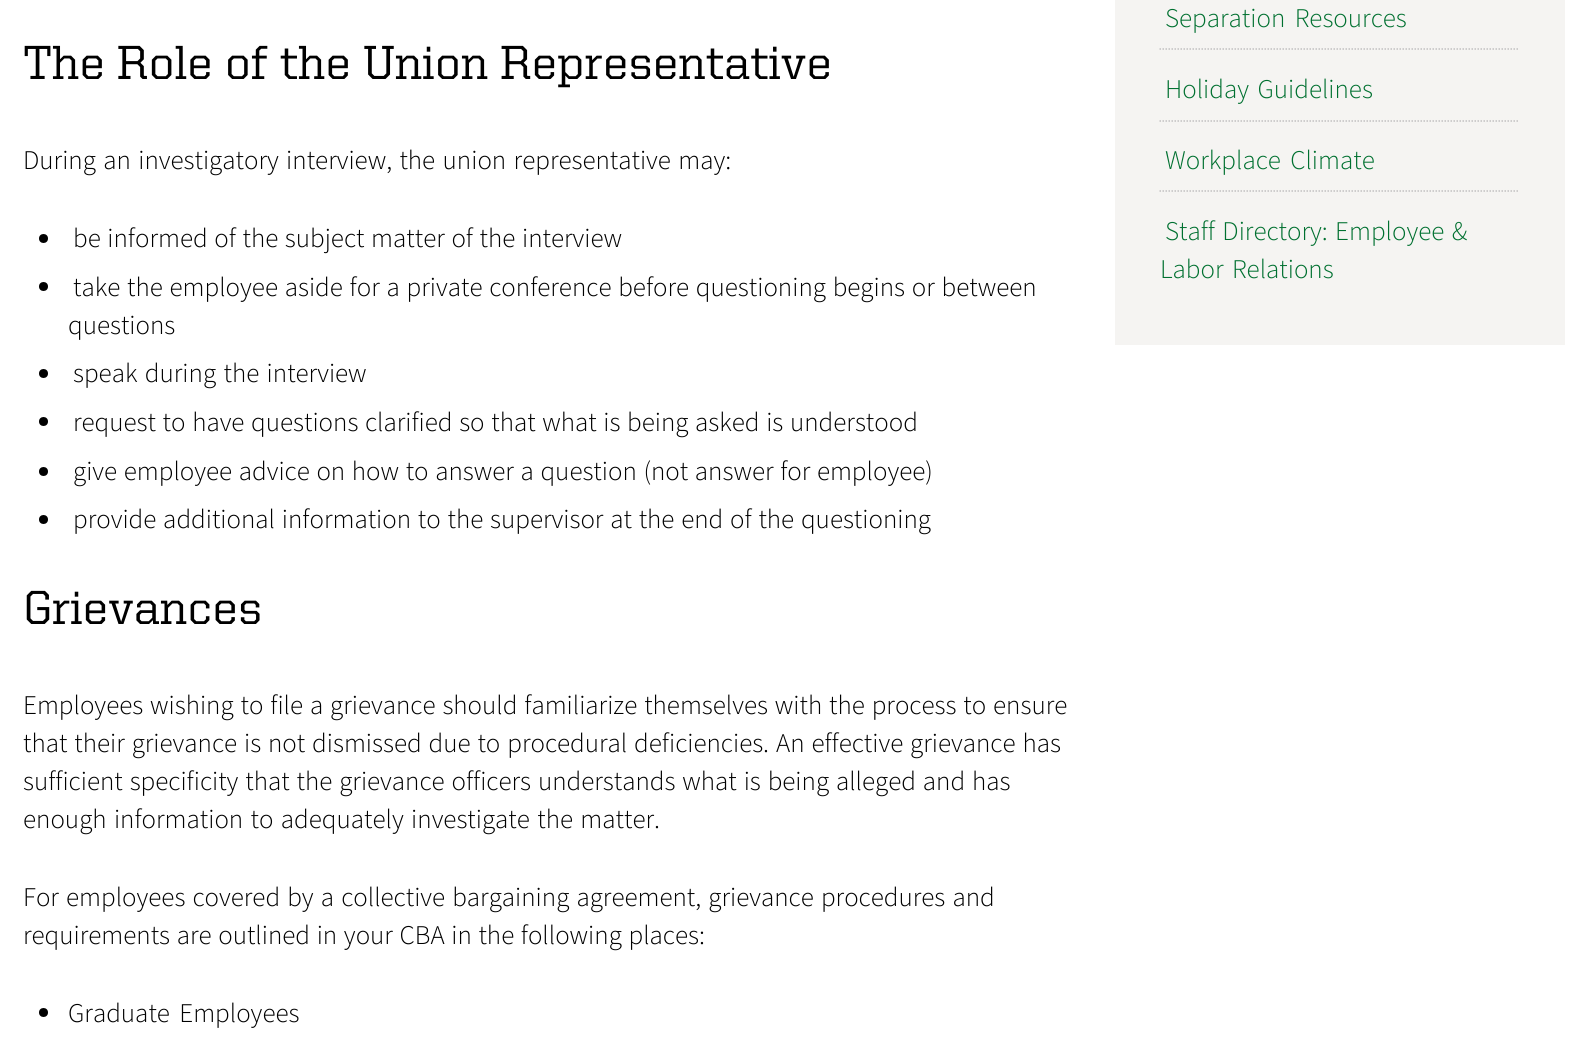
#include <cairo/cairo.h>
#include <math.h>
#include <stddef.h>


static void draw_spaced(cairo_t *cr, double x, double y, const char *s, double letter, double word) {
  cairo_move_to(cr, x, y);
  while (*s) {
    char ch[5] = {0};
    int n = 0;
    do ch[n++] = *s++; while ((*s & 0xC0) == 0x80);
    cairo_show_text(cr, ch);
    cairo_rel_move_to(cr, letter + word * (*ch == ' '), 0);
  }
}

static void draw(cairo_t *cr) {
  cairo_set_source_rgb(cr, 1, 1, 1);
  cairo_paint(cr);
  cairo_set_source_rgb(cr, 0, 0, 0);
  cairo_arc(cr, 43.5, 238.5, 4.5, 0, 2 * M_PI);
  cairo_fill(cr);
  cairo_arc(cr, 43.5, 286.5, 4.5, 0, 2 * M_PI);
  cairo_fill(cr);
  cairo_arc(cr, 43.5, 373.5, 4.5, 0, 2 * M_PI);
  cairo_fill(cr);
  cairo_arc(cr, 43.5, 421.5, 4.5, 0, 2 * M_PI);
  cairo_fill(cr);
  cairo_arc(cr, 43.5, 471.5, 4.5, 0, 2 * M_PI);
  cairo_fill(cr);
  cairo_arc(cr, 43.5, 519.5, 4.5, 0, 2 * M_PI);
  cairo_fill(cr);
  cairo_arc(cr, 43.5, 1012.5, 4.5, 0, 2 * M_PI);
  cairo_fill(cr);
  cairo_set_source_rgb(cr, 245 / 255.0, 244 / 255.0, 242 / 255.0);
  cairo_rectangle(cr, 1115, 0, 450, 345);
  cairo_fill(cr);
  cairo_new_path(cr);
  cairo_move_to(cr, 1159.5, 49);
  cairo_line_to(cr, 1519.5, 49);
  cairo_set_source_rgb(cr, 192 / 255.0, 192 / 255.0, 192 / 255.0);
  cairo_set_line_width(cr, 1.5);
  cairo_set_dash(cr, (double[]){1.5, 1.5}, 2, 0);
  cairo_stroke(cr);
  cairo_new_path(cr);
  cairo_move_to(cr, 1159.5, 121);
  cairo_line_to(cr, 1519.5, 121);
  cairo_stroke(cr);
  cairo_new_path(cr);
  cairo_move_to(cr, 1159.5, 191);
  cairo_line_to(cr, 1519.5, 191);
  cairo_stroke(cr);
  cairo_select_font_face(cr, "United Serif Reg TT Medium", CAIRO_FONT_SLANT_NORMAL, CAIRO_FONT_WEIGHT_NORMAL);
  cairo_set_font_size(cr, 48);
  cairo_set_source_rgb(cr, 0, 0, 0);
  cairo_move_to(cr, 23, 79);
  cairo_show_text(cr, "The Role of the Union Representative");
  cairo_select_font_face(cr, "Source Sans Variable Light", CAIRO_FONT_SLANT_NORMAL, CAIRO_FONT_WEIGHT_NORMAL);
  cairo_set_font_size(cr, 27);
  draw_spaced(cr, 23, 169, "During an investigatory interview, the union representative may:", 0, 2);
  draw_spaced(cr, 73, 247, "be informed of the subject matter of the interview", 0, 1.25);
  draw_spaced(cr, 73, 296, "take the employee aside for a private conference before questioning begins or between", 0, 1.4);
  cairo_move_to(cr, 68, 334);
  cairo_show_text(cr, "questions");
  draw_spaced(cr, 73, 382, "speak during the interview", 0, 2);
  draw_spaced(cr, 73, 431, "request to have questions clarified so that what is being asked is understood", 0, 1.25);
  draw_spaced(cr, 73, 480, "give employee advice on how to answer a question (not answer for employee)", 0, 1.25);
  draw_spaced(cr, 73, 528, "provide additional information to the supervisor at the end of the questioning", 0, 1.4);
  cairo_select_font_face(cr, "United Serif Reg TT Medium", CAIRO_FONT_SLANT_NORMAL, CAIRO_FONT_WEIGHT_NORMAL);
  cairo_set_font_size(cr, 48);
  cairo_move_to(cr, 23, 624);
  cairo_show_text(cr, "Grievances");
  cairo_select_font_face(cr, "Source Sans Variable Light", CAIRO_FONT_SLANT_NORMAL, CAIRO_FONT_WEIGHT_NORMAL);
  cairo_set_font_size(cr, 27);
  draw_spaced(cr, 23, 714, "Employees wishing to file a grievance should familiarize themselves with the process to ensure", 0, 1.5);
  draw_spaced(cr, 23, 752, "that their grievance is not dismissed due to procedural deficiencies. An effective grievance has", 0, 1.5);
  draw_spaced(cr, 23, 790, "sufficient specificity that the grievance officers understands what is being alleged and has", 0, 1.5);
  draw_spaced(cr, 23, 828, "enough information to adequately investigate the matter.", 0, 2);
  draw_spaced(cr, 23, 906, "For employees covered by a collective bargaining agreement, grievance procedures and", 0, 1.75);
  draw_spaced(cr, 23, 944, "requirements are outlined in your CBA in the following places:", 0, 1.25);
  draw_spaced(cr, 68, 1022, "Graduate Employees", 0, 4);
  cairo_set_source_rgb(cr, 0, 112 / 255.0, 48 / 255.0);
  draw_spaced(cr, 1165, 27, "Separation Resources", 0, 4);
  draw_spaced(cr, 1165, 98, "Holiday Guidelines", 0, 3);
  draw_spaced(cr, 1165, 169, "Workplace Climate", 0, 4);
  draw_spaced(cr, 1165, 240, "Staff Directory: Employee &", 0, 2);
  draw_spaced(cr, 1160, 278, "Labor Relations", 0, 3);
}

int main(void) {
  cairo_surface_t *surface = cairo_image_surface_create(CAIRO_FORMAT_RGB24, 1587, 1050);
  cairo_t *cr = cairo_create(surface);
  cairo_font_options_t *options = cairo_font_options_create();
  cairo_font_options_set_hint_metrics(options, CAIRO_HINT_METRICS_OFF);
  cairo_font_options_set_hint_style(options, CAIRO_HINT_STYLE_NONE);
  cairo_set_font_options(cr, options);
  cairo_set_miter_limit(cr, 4);
  draw(cr);
  cairo_surface_write_to_png(surface, "out.png");
  cairo_font_options_destroy(options);
  cairo_destroy(cr);
  cairo_surface_destroy(surface);
  return 0;
}
